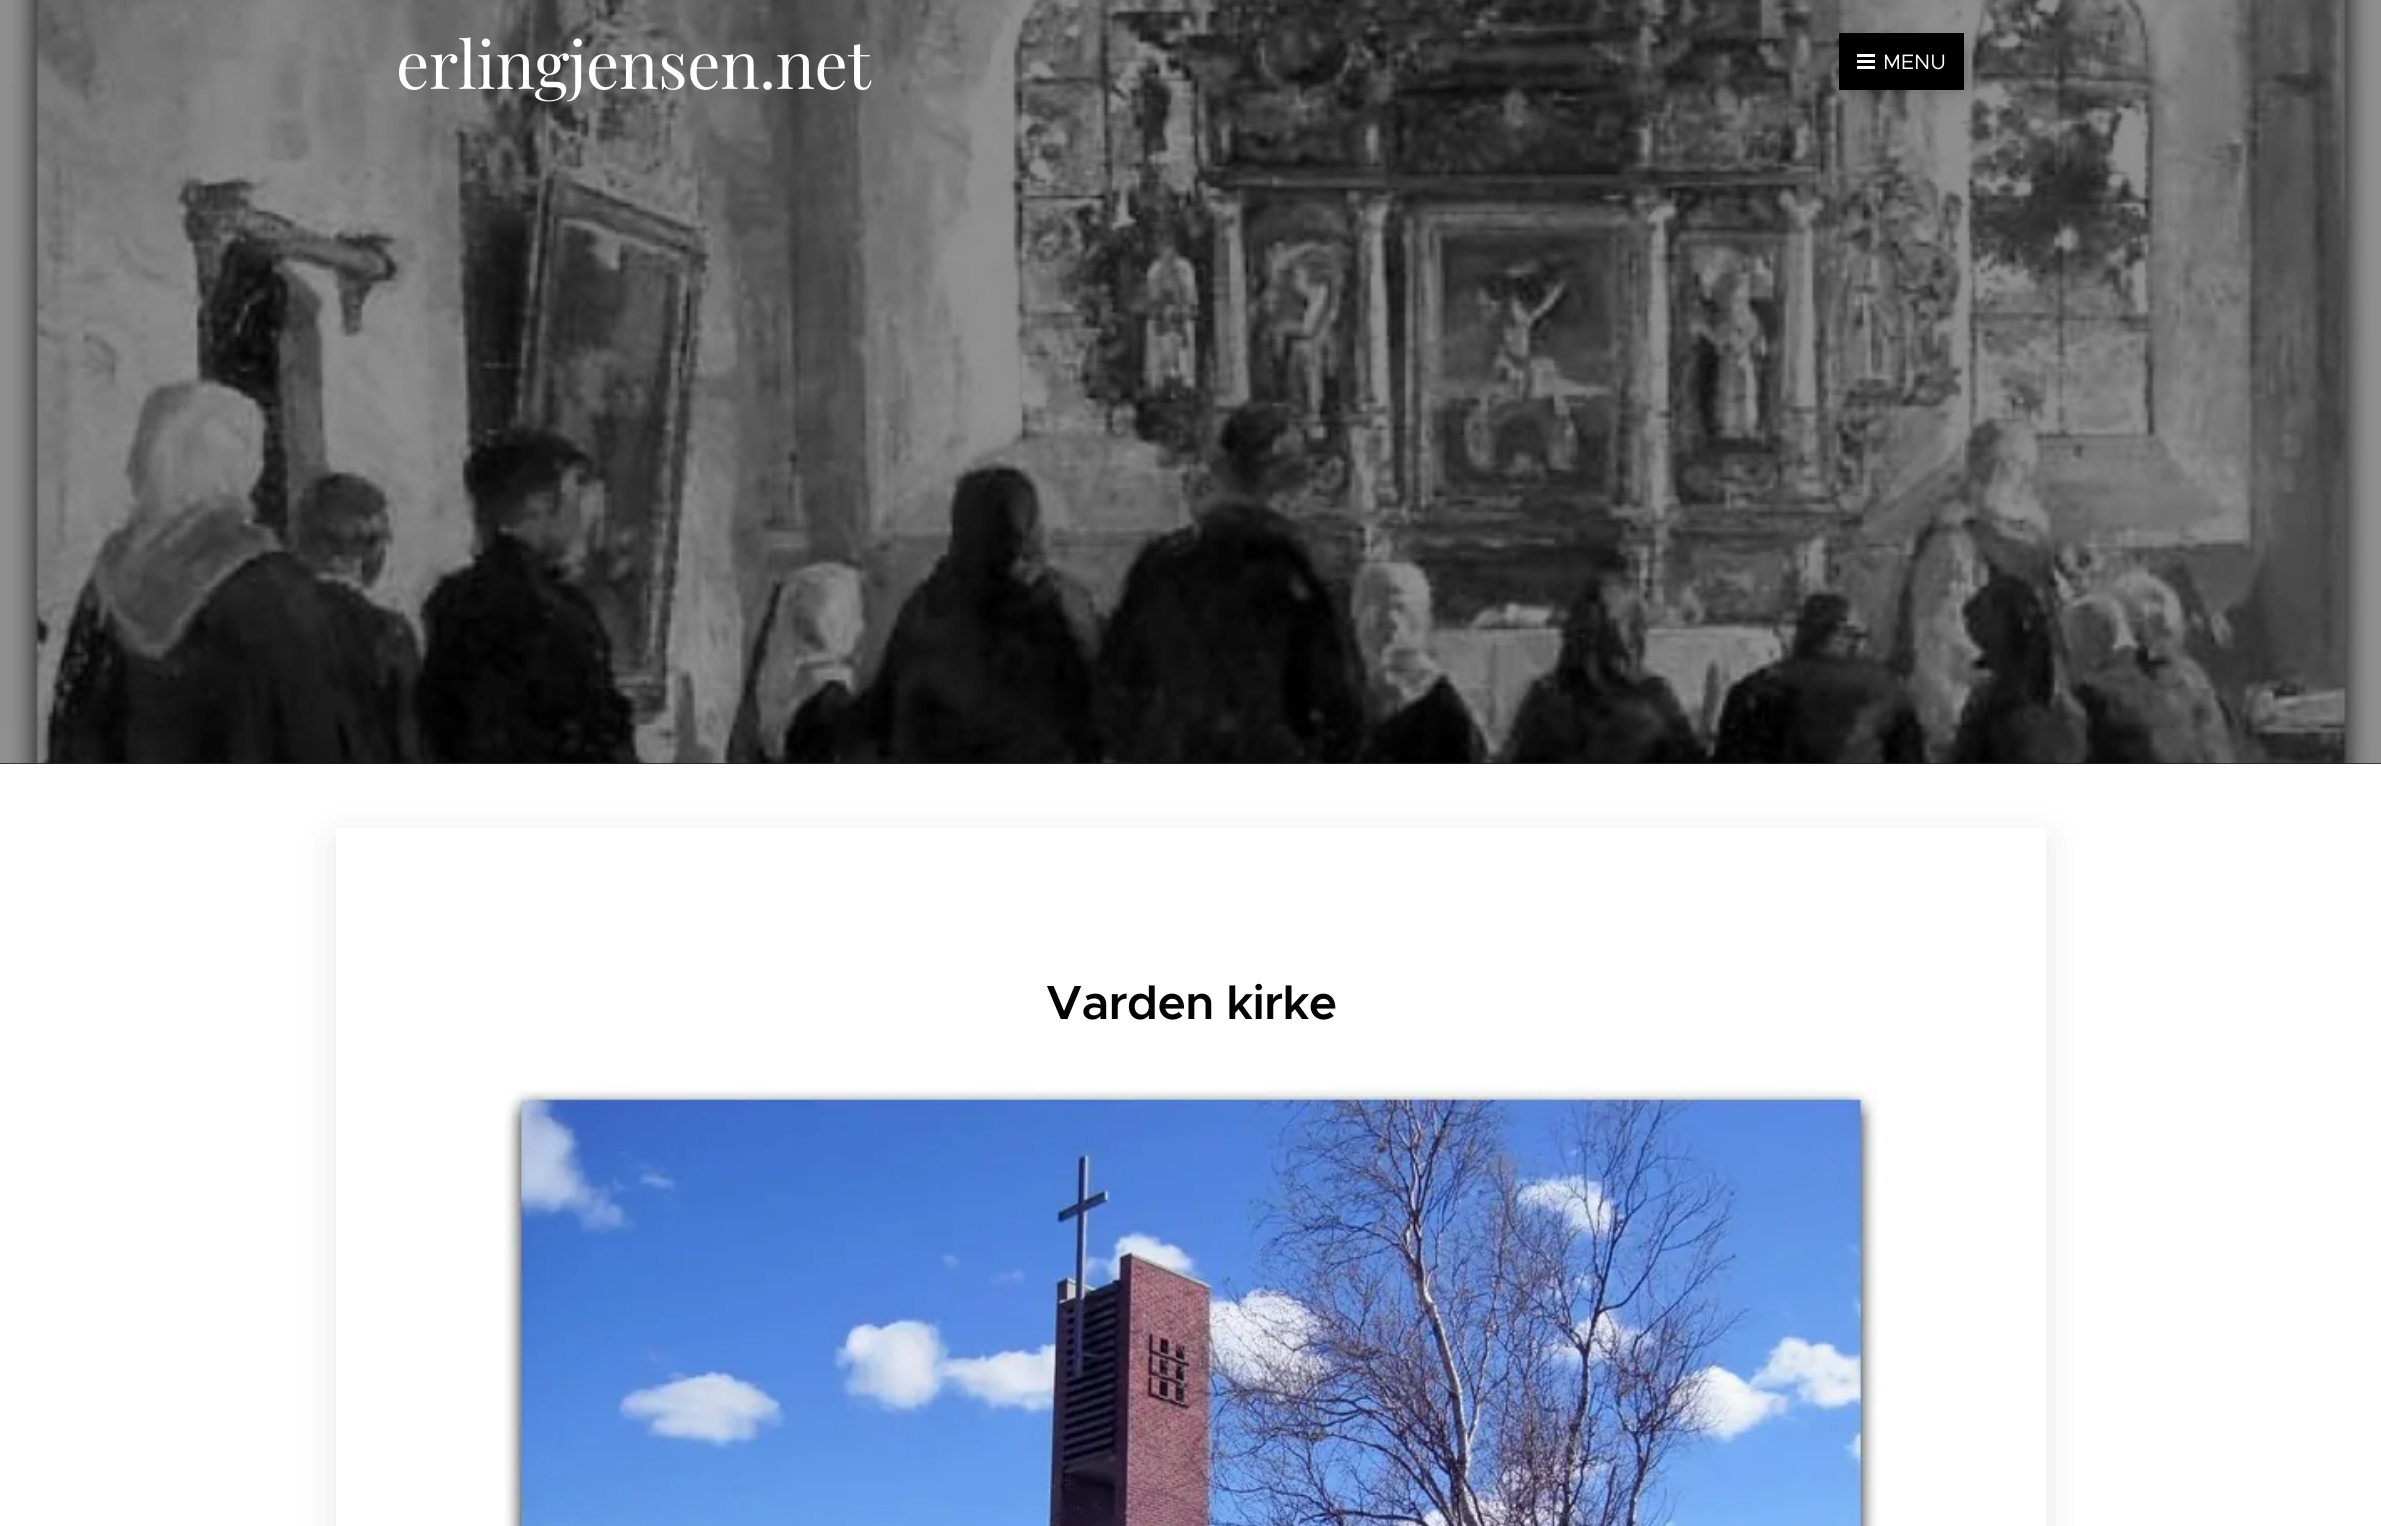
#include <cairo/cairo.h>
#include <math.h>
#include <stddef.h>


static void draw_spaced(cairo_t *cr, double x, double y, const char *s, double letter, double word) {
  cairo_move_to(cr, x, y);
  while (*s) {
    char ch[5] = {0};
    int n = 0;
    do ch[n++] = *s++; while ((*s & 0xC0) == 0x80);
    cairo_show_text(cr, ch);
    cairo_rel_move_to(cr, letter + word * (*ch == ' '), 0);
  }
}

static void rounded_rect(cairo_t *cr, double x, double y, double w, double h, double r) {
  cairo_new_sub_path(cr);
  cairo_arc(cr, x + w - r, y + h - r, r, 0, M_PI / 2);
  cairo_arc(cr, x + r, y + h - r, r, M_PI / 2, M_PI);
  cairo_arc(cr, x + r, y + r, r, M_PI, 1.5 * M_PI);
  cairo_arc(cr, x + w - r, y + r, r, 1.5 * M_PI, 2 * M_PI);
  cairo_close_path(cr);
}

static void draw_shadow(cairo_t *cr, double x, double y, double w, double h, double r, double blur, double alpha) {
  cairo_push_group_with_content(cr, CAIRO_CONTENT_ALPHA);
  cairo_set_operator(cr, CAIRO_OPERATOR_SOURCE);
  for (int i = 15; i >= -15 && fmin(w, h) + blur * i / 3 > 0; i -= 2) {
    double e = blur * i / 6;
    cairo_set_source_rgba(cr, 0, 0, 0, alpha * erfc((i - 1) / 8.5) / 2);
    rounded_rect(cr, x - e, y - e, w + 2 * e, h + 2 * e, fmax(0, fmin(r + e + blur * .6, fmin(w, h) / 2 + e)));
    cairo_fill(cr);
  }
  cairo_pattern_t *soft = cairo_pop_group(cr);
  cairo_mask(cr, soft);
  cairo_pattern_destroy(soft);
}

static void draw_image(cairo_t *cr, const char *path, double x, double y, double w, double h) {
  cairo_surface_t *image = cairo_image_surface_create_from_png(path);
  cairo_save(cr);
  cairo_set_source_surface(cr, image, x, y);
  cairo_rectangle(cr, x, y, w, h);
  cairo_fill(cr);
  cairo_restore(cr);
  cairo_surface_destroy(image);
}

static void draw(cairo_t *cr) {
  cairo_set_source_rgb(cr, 1, 1, 1);
  cairo_paint(cr);
  cairo_set_source_rgb(cr, 27 / 255.0, 27 / 255.0, 27 / 255.0);
  cairo_rectangle(cr, 0, 763, 2381, 1);
  cairo_fill(cr);
  draw_image(cr, "images/1.png", 0, 0, 2381, 764);
  cairo_set_source_rgb(cr, 0, 0, 0);
  draw_shadow(cr, 1857, 51, 101, 33, 0, 12, 0.5);
  cairo_set_source_rgb(cr, 0, 0, 0);
  cairo_rectangle(cr, 1839, 33, 125, 57);
  cairo_fill(cr);
  cairo_set_source_rgb(cr, 1, 1, 1);
  cairo_rectangle(cr, 1857, 60, 18, 3);
  cairo_fill(cr);
  cairo_rectangle(cr, 1857, 54, 18, 3);
  cairo_fill(cr);
  cairo_rectangle(cr, 1857, 66, 18, 3);
  cairo_fill(cr);
  cairo_save(cr);
  cairo_set_fill_rule(cr, CAIRO_FILL_RULE_EVEN_ODD);
  cairo_new_path(cr);
  cairo_move_to(cr, 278, 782);
  cairo_line_to(cr, 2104, 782);
  cairo_line_to(cr, 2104, 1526);
  cairo_line_to(cr, 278, 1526);
  cairo_close_path(cr);
  cairo_move_to(cr, 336, 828);
  cairo_line_to(cr, 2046, 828);
  cairo_line_to(cr, 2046, 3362);
  cairo_line_to(cr, 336, 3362);
  cairo_close_path(cr);
  cairo_clip(cr);
  cairo_set_source_rgb(cr, 0, 0, 0);
  draw_shadow(cr, 336, 840, 1710, 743, 0, 19, 0.1);
  cairo_restore(cr);
  draw_image(cr, "images/2.png", 504, 1087, 1374, 439);
  cairo_select_font_face(cr, "Playfair Display", CAIRO_FONT_SLANT_NORMAL, CAIRO_FONT_WEIGHT_NORMAL);
  cairo_set_font_size(cr, 66);
  draw_spaced(cr, 396, 89, "erlingjensen.net", -0.4, 0);
  cairo_select_font_face(cr, "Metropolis", CAIRO_FONT_SLANT_NORMAL, CAIRO_FONT_WEIGHT_NORMAL);
  cairo_set_font_size(cr, 21);
  cairo_move_to(cr, 1883, 69);
  cairo_show_text(cr, "MENU");
  cairo_select_font_face(cr, "Metropolis SemiBold", CAIRO_FONT_SLANT_NORMAL, CAIRO_FONT_WEIGHT_NORMAL);
  cairo_set_font_size(cr, 48);
  cairo_set_source_rgb(cr, 3 / 255.0, 3 / 255.0, 3 / 255.0);
  draw_spaced(cr, 1046, 1019, "Varden kirke", -0.75, 0);
}

int main(void) {
  cairo_surface_t *surface = cairo_image_surface_create(CAIRO_FORMAT_RGB24, 2381, 1526);
  cairo_t *cr = cairo_create(surface);
  cairo_font_options_t *options = cairo_font_options_create();
  cairo_font_options_set_hint_metrics(options, CAIRO_HINT_METRICS_OFF);
  cairo_font_options_set_hint_style(options, CAIRO_HINT_STYLE_NONE);
  cairo_set_font_options(cr, options);
  cairo_set_miter_limit(cr, 4);
  draw(cr);
  cairo_surface_write_to_png(surface, "out.png");
  cairo_font_options_destroy(options);
  cairo_destroy(cr);
  cairo_surface_destroy(surface);
  return 0;
}
